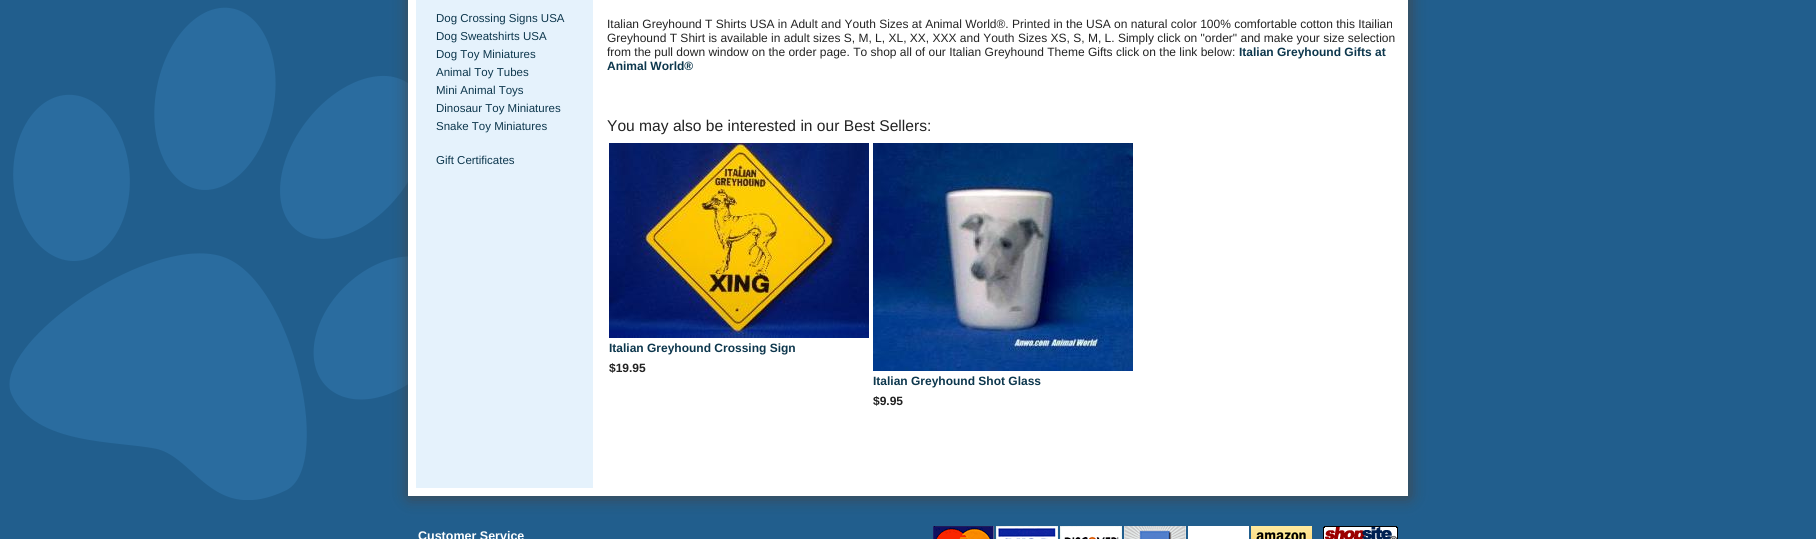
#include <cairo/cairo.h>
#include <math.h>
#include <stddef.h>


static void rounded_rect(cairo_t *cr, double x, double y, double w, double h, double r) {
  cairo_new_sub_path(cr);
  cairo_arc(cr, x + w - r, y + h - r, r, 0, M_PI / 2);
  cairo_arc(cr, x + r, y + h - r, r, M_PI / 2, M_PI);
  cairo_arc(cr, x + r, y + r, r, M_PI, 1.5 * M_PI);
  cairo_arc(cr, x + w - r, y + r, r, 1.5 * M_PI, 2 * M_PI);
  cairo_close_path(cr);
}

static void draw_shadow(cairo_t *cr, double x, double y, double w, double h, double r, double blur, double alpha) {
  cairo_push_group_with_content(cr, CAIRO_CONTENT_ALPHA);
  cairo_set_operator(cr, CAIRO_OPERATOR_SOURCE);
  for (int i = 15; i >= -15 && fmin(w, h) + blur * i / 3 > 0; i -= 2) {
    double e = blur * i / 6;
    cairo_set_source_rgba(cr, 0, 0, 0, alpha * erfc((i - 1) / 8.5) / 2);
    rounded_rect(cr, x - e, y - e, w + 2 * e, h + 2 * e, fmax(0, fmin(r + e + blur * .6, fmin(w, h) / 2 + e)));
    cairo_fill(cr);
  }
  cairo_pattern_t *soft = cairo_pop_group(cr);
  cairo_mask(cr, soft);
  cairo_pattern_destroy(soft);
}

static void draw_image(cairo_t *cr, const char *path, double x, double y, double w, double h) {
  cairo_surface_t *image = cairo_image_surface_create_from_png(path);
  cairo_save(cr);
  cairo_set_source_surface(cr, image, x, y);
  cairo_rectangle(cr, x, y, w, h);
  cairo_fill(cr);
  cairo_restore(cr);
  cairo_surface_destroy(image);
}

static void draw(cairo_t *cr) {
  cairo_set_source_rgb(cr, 33 / 255.0, 94 / 255.0, 141 / 255.0);
  cairo_paint(cr);
  draw_image(cr, "images/1.png", 9, 7, 449, 493);
  cairo_set_source_rgb(cr, 69 / 255.0, 69 / 255.0, 69 / 255.0);
  draw_shadow(cr, 409, -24, 1000, 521, 0, 8, 1);
  cairo_set_source_rgb(cr, 229 / 255.0, 242 / 255.0, 252 / 255.0);
  cairo_rectangle(cr, 416, 0, 177, 488);
  cairo_fill(cr);
  cairo_rectangle(cr, 412, -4, 992, 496);
  cairo_set_source_rgb(cr, 1, 1, 1);
  cairo_set_line_width(cr, 8);
  cairo_stroke(cr);
  cairo_rectangle(cr, 593, 0, 807, 488);
  cairo_fill(cr);
  draw_image(cr, "images/2.png", 609, 143, 260, 195);
  draw_image(cr, "images/3.png", 873, 143, 260, 228);
  draw_image(cr, "images/4.png", 933, 526, 379, 13);
  draw_image(cr, "images/5.png", 1323, 526, 75, 13);
  cairo_select_font_face(cr, "Liberation Sans", CAIRO_FONT_SLANT_NORMAL, CAIRO_FONT_WEIGHT_NORMAL);
  cairo_set_font_size(cr, 11.5);
  cairo_set_source_rgb(cr, 13 / 255.0, 55 / 255.0, 77 / 255.0);
  cairo_move_to(cr, 436, 22);
  cairo_show_text(cr, "Dog Crossing Signs USA");
  cairo_move_to(cr, 436, 40);
  cairo_show_text(cr, "Dog Sweatshirts USA");
  cairo_move_to(cr, 436, 58);
  cairo_show_text(cr, "Dog Toy Miniatures");
  cairo_move_to(cr, 436, 76);
  cairo_show_text(cr, "Animal Toy Tubes");
  cairo_move_to(cr, 436, 94);
  cairo_show_text(cr, "Mini Animal Toys");
  cairo_move_to(cr, 436, 112);
  cairo_show_text(cr, "Dinosaur Toy Miniatures");
  cairo_move_to(cr, 436, 130);
  cairo_show_text(cr, "Snake Toy Miniatures");
  cairo_move_to(cr, 436, 164);
  cairo_show_text(cr, "Gift Certificates");
  cairo_set_font_size(cr, 12);
  cairo_set_source_rgb(cr, 35 / 255.0, 35 / 255.0, 35 / 255.0);
  cairo_move_to(cr, 607, 28);
  cairo_show_text(cr, "Italian Greyhound T Shirts USA in Adult and Youth Sizes at Animal World®. Printed in the USA on natural color 100% comfortable cotton this Itailian");
  cairo_move_to(cr, 607, 42);
  cairo_show_text(cr, "Greyhound T Shirt is available in adult sizes S, M, L, XL, XX, XXX and Youth Sizes XS, S, M, L. Simply click on \"order\" and make your size selection");
  cairo_move_to(cr, 607, 56);
  cairo_show_text(cr, "from the pull down window on the order page. To shop all of our Italian Greyhound Theme Gifts click on the link below:");
  cairo_select_font_face(cr, "Liberation Sans", CAIRO_FONT_SLANT_NORMAL, CAIRO_FONT_WEIGHT_BOLD);
  cairo_set_source_rgb(cr, 13 / 255.0, 55 / 255.0, 77 / 255.0);
  cairo_move_to(cr, 1239, 56);
  cairo_show_text(cr, "Italian Greyhound Gifts at");
  cairo_move_to(cr, 607, 70);
  cairo_show_text(cr, "Animal World®");
  cairo_select_font_face(cr, "Liberation Sans", CAIRO_FONT_SLANT_NORMAL, CAIRO_FONT_WEIGHT_NORMAL);
  cairo_set_font_size(cr, 15.6);
  cairo_set_source_rgb(cr, 35 / 255.0, 35 / 255.0, 35 / 255.0);
  cairo_move_to(cr, 607, 131);
  cairo_show_text(cr, "You may also be interested in our Best Sellers:");
  cairo_select_font_face(cr, "Liberation Sans", CAIRO_FONT_SLANT_NORMAL, CAIRO_FONT_WEIGHT_BOLD);
  cairo_set_font_size(cr, 12);
  cairo_set_source_rgb(cr, 13 / 255.0, 55 / 255.0, 77 / 255.0);
  cairo_move_to(cr, 609, 352);
  cairo_show_text(cr, "Italian Greyhound Crossing Sign");
  cairo_set_source_rgb(cr, 35 / 255.0, 35 / 255.0, 35 / 255.0);
  cairo_move_to(cr, 609, 372);
  cairo_show_text(cr, "$19.95");
  cairo_set_source_rgb(cr, 13 / 255.0, 55 / 255.0, 77 / 255.0);
  cairo_move_to(cr, 873, 385);
  cairo_show_text(cr, "Italian Greyhound Shot Glass");
  cairo_set_source_rgb(cr, 35 / 255.0, 35 / 255.0, 35 / 255.0);
  cairo_move_to(cr, 873, 405);
  cairo_show_text(cr, "$9.95");
  cairo_set_font_size(cr, 12.5);
  cairo_set_source_rgb(cr, 1, 1, 1);
  cairo_move_to(cr, 418, 540);
  cairo_show_text(cr, "Customer Service");
}

int main(void) {
  cairo_surface_t *surface = cairo_image_surface_create(CAIRO_FORMAT_RGB24, 1816, 539);
  cairo_t *cr = cairo_create(surface);
  cairo_font_options_t *options = cairo_font_options_create();
  cairo_font_options_set_hint_metrics(options, CAIRO_HINT_METRICS_OFF);
  cairo_font_options_set_hint_style(options, CAIRO_HINT_STYLE_NONE);
  cairo_set_font_options(cr, options);
  cairo_set_miter_limit(cr, 4);
  draw(cr);
  cairo_surface_write_to_png(surface, "out.png");
  cairo_font_options_destroy(options);
  cairo_destroy(cr);
  cairo_surface_destroy(surface);
  return 0;
}
